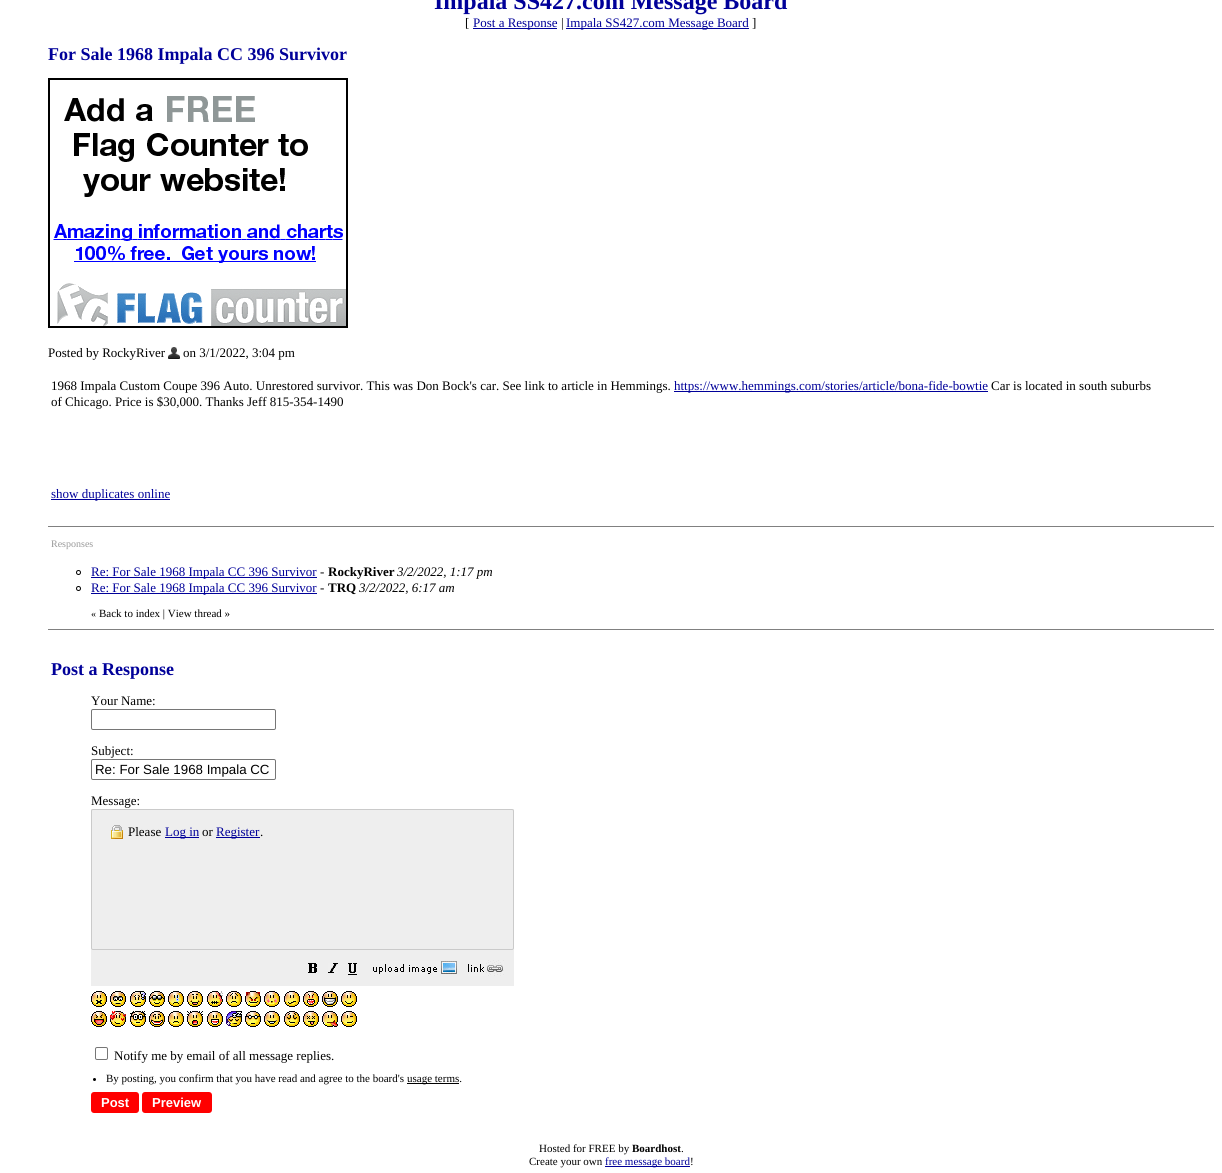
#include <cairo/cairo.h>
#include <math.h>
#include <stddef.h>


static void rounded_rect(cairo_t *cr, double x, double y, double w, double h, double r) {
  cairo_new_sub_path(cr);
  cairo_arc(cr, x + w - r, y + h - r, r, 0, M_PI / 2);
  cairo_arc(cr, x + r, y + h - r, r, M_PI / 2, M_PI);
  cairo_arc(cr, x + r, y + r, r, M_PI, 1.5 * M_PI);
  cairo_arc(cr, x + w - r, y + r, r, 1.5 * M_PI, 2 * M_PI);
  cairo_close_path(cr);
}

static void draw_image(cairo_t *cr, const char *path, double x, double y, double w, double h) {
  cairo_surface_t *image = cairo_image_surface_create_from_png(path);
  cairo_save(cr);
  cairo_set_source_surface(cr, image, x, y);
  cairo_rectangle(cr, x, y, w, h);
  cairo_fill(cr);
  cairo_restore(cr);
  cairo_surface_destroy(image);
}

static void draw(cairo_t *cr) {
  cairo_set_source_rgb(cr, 1, 1, 1);
  cairo_paint(cr);
  cairo_set_source_rgb(cr, 0, 0, 153 / 255.0);
  cairo_rectangle(cr, 473, 28, 84, 1);
  cairo_fill(cr);
  cairo_rectangle(cr, 566, 28, 183, 1);
  cairo_fill(cr);
  draw_image(cr, "images/1.png", 48, 78, 300, 250);
  draw_image(cr, "images/2.png", 168, 347, 12, 12);
  cairo_rectangle(cr, 674, 391, 314, 1);
  cairo_fill(cr);
  cairo_rectangle(cr, 51, 499, 119, 1);
  cairo_fill(cr);
  cairo_set_source_rgb(cr, 128 / 255.0, 128 / 255.0, 128 / 255.0);
  cairo_rectangle(cr, 48, 526, 1166, 1);
  cairo_fill(cr);
  cairo_arc(cr, 78.5, 572.5, 2, 0, 2 * M_PI);
  cairo_set_source_rgb(cr, 0, 0, 0);
  cairo_set_line_width(cr, 1);
  cairo_stroke(cr);
  cairo_set_source_rgb(cr, 0, 0, 153 / 255.0);
  cairo_rectangle(cr, 91, 577, 226, 1);
  cairo_fill(cr);
  cairo_arc(cr, 78.5, 588.5, 2, 0, 2 * M_PI);
  cairo_set_source_rgb(cr, 0, 0, 0);
  cairo_stroke(cr);
  cairo_set_source_rgb(cr, 0, 0, 153 / 255.0);
  cairo_rectangle(cr, 91, 593, 226, 1);
  cairo_fill(cr);
  cairo_set_source_rgb(cr, 128 / 255.0, 128 / 255.0, 128 / 255.0);
  cairo_rectangle(cr, 48, 629, 1166, 1);
  cairo_fill(cr);
  rounded_rect(cr, 91.5, 709.5, 184, 20, 1.5);
  cairo_set_source_rgb(cr, 118 / 255.0, 118 / 255.0, 118 / 255.0);
  cairo_stroke(cr);
  rounded_rect(cr, 91.5, 759.5, 184, 20, 1.5);
  cairo_stroke(cr);
  cairo_set_source_rgb(cr, 238 / 255.0, 238 / 255.0, 238 / 255.0);
  cairo_rectangle(cr, 91, 809, 423, 177);
  cairo_fill(cr);
  rounded_rect(cr, 91.5, 809.5, 422, 140, 1.5);
  cairo_set_source_rgb(cr, 202 / 255.0, 202 / 255.0, 202 / 255.0);
  cairo_stroke(cr);
  draw_image(cr, "images/3.png", 111, 825, 12, 14);
  cairo_set_source_rgb(cr, 0, 0, 153 / 255.0);
  cairo_rectangle(cr, 165, 837, 34, 1);
  cairo_fill(cr);
  cairo_rectangle(cr, 216, 837, 44, 1);
  cairo_fill(cr);
  draw_image(cr, "images/4.png", 308, 963, 9, 10);
  draw_image(cr, "images/5.png", 328, 963, 10, 10);
  draw_image(cr, "images/6.png", 348, 963, 9, 12);
  draw_image(cr, "images/7.png", 373, 961, 84, 13);
  draw_image(cr, "images/8.png", 468, 960, 36, 16);
  draw_image(cr, "images/9.png", 91, 991, 16, 16);
  draw_image(cr, "images/10.png", 110, 991, 16, 16);
  draw_image(cr, "images/11.png", 130, 991, 16, 16);
  draw_image(cr, "images/12.png", 149, 991, 16, 16);
  draw_image(cr, "images/13.png", 168, 991, 16, 16);
  draw_image(cr, "images/14.png", 187, 991, 16, 16);
  draw_image(cr, "images/15.png", 207, 991, 16, 16);
  draw_image(cr, "images/16.png", 226, 991, 16, 16);
  draw_image(cr, "images/17.png", 245, 991, 16, 16);
  draw_image(cr, "images/18.png", 264, 991, 16, 16);
  draw_image(cr, "images/19.png", 284, 991, 16, 16);
  draw_image(cr, "images/20.png", 303, 991, 16, 16);
  draw_image(cr, "images/21.png", 322, 991, 16, 16);
  draw_image(cr, "images/22.png", 341, 991, 16, 16);
  draw_image(cr, "images/23.png", 91, 1011, 16, 16);
  draw_image(cr, "images/24.png", 110, 1011, 16, 16);
  draw_image(cr, "images/25.png", 130, 1011, 16, 16);
  draw_image(cr, "images/26.png", 149, 1011, 16, 16);
  draw_image(cr, "images/27.png", 168, 1011, 16, 16);
  draw_image(cr, "images/28.png", 187, 1011, 16, 16);
  draw_image(cr, "images/29.png", 207, 1011, 16, 16);
  draw_image(cr, "images/30.png", 226, 1011, 16, 16);
  draw_image(cr, "images/31.png", 245, 1011, 16, 16);
  draw_image(cr, "images/32.png", 264, 1011, 16, 16);
  draw_image(cr, "images/33.png", 284, 1011, 16, 16);
  draw_image(cr, "images/34.png", 303, 1011, 16, 16);
  draw_image(cr, "images/35.png", 322, 1011, 16, 16);
  draw_image(cr, "images/36.png", 341, 1011, 16, 16);
  rounded_rect(cr, 95.5, 1047.5, 12, 12, 1.5);
  cairo_set_source_rgb(cr, 118 / 255.0, 118 / 255.0, 118 / 255.0);
  cairo_stroke(cr);
  cairo_set_source_rgb(cr, 0, 0, 0);
  cairo_arc(cr, 94.5, 1079.5, 1.5, 0, 2 * M_PI);
  cairo_fill(cr);
  cairo_rectangle(cr, 407, 1083, 52, 1);
  cairo_fill(cr);
  cairo_set_source_rgb(cr, 1, 0, 0);
  rounded_rect(cr, 91, 1092, 48, 21, 3);
  cairo_fill(cr);
  rounded_rect(cr, 142, 1092, 70, 21, 3);
  cairo_fill(cr);
  cairo_set_source_rgb(cr, 0, 0, 153 / 255.0);
  cairo_rectangle(cr, 605, 1166, 85, 1);
  cairo_fill(cr);
  cairo_select_font_face(cr, "Liberation Serif", CAIRO_FONT_SLANT_NORMAL, CAIRO_FONT_WEIGHT_BOLD);
  cairo_set_font_size(cr, 24);
  cairo_move_to(cr, 434, 9);
  cairo_show_text(cr, "Impala SS427.com Message Board");
  cairo_select_font_face(cr, "Liberation Serif", CAIRO_FONT_SLANT_NORMAL, CAIRO_FONT_WEIGHT_NORMAL);
  cairo_set_font_size(cr, 13);
  cairo_set_source_rgb(cr, 0, 0, 0);
  cairo_move_to(cr, 465, 27);
  cairo_show_text(cr, "[");
  cairo_set_source_rgb(cr, 0, 0, 153 / 255.0);
  cairo_move_to(cr, 473, 27);
  cairo_show_text(cr, "Post a Response");
  cairo_set_source_rgb(cr, 0, 0, 0);
  cairo_move_to(cr, 561, 27);
  cairo_show_text(cr, "|");
  cairo_set_source_rgb(cr, 0, 0, 153 / 255.0);
  cairo_move_to(cr, 566, 27);
  cairo_show_text(cr, "Impala SS427.com Message Board");
  cairo_set_source_rgb(cr, 0, 0, 0);
  cairo_move_to(cr, 752, 27);
  cairo_show_text(cr, "]");
  cairo_select_font_face(cr, "Liberation Serif", CAIRO_FONT_SLANT_NORMAL, CAIRO_FONT_WEIGHT_BOLD);
  cairo_set_font_size(cr, 18);
  cairo_set_source_rgb(cr, 0, 0, 153 / 255.0);
  cairo_move_to(cr, 48, 60);
  cairo_show_text(cr, "For Sale 1968 Impala CC 396 Survivor");
  cairo_select_font_face(cr, "Liberation Serif", CAIRO_FONT_SLANT_NORMAL, CAIRO_FONT_WEIGHT_NORMAL);
  cairo_set_font_size(cr, 13);
  cairo_set_source_rgb(cr, 0, 0, 0);
  cairo_move_to(cr, 48, 357);
  cairo_show_text(cr, "Posted by RockyRiver");
  cairo_move_to(cr, 183, 357);
  cairo_show_text(cr, "on 3/1/2022, 3:04 pm");
  cairo_move_to(cr, 51, 390);
  cairo_show_text(cr, "1968 Impala Custom Coupe 396 Auto. Unrestored survivor. This was Don Bock's car. See link to article in Hemmings.");
  cairo_set_source_rgb(cr, 0, 0, 153 / 255.0);
  cairo_move_to(cr, 674, 390);
  cairo_show_text(cr, "https://www.hemmings.com/stories/article/bona-fide-bowtie");
  cairo_set_source_rgb(cr, 0, 0, 0);
  cairo_move_to(cr, 991, 390);
  cairo_show_text(cr, "Car is located in south suburbs");
  cairo_move_to(cr, 51, 406);
  cairo_show_text(cr, "of Chicago. Price is $30,000. Thanks Jeff 815-354-1490");
  cairo_set_source_rgb(cr, 0, 0, 153 / 255.0);
  cairo_move_to(cr, 51, 498);
  cairo_show_text(cr, "show duplicates online");
  cairo_set_font_size(cr, 10);
  cairo_set_source_rgb(cr, 153 / 255.0, 153 / 255.0, 153 / 255.0);
  cairo_move_to(cr, 51, 547);
  cairo_show_text(cr, "Responses");
  cairo_set_font_size(cr, 13);
  cairo_set_source_rgb(cr, 0, 0, 153 / 255.0);
  cairo_move_to(cr, 91, 576);
  cairo_show_text(cr, "Re: For Sale 1968 Impala CC 396 Survivor");
  cairo_set_source_rgb(cr, 0, 0, 0);
  cairo_move_to(cr, 320, 576);
  cairo_show_text(cr, "-");
  cairo_select_font_face(cr, "Liberation Serif", CAIRO_FONT_SLANT_NORMAL, CAIRO_FONT_WEIGHT_BOLD);
  cairo_move_to(cr, 328, 576);
  cairo_show_text(cr, "RockyRiver");
  cairo_select_font_face(cr, "Liberation Serif", CAIRO_FONT_SLANT_ITALIC, CAIRO_FONT_WEIGHT_NORMAL);
  cairo_move_to(cr, 397, 576);
  cairo_show_text(cr, "3/2/2022, 1:17 pm");
  cairo_select_font_face(cr, "Liberation Serif", CAIRO_FONT_SLANT_NORMAL, CAIRO_FONT_WEIGHT_NORMAL);
  cairo_set_source_rgb(cr, 0, 0, 153 / 255.0);
  cairo_move_to(cr, 91, 592);
  cairo_show_text(cr, "Re: For Sale 1968 Impala CC 396 Survivor");
  cairo_set_source_rgb(cr, 0, 0, 0);
  cairo_move_to(cr, 320, 592);
  cairo_show_text(cr, "-");
  cairo_select_font_face(cr, "Liberation Serif", CAIRO_FONT_SLANT_NORMAL, CAIRO_FONT_WEIGHT_BOLD);
  cairo_move_to(cr, 328, 592);
  cairo_show_text(cr, "TRQ");
  cairo_select_font_face(cr, "Liberation Serif", CAIRO_FONT_SLANT_ITALIC, CAIRO_FONT_WEIGHT_NORMAL);
  cairo_move_to(cr, 359, 592);
  cairo_show_text(cr, "3/2/2022, 6:17 am");
  cairo_select_font_face(cr, "Liberation Serif", CAIRO_FONT_SLANT_NORMAL, CAIRO_FONT_WEIGHT_NORMAL);
  cairo_set_font_size(cr, 10);
  cairo_move_to(cr, 91, 617);
  cairo_show_text(cr, "«");
  cairo_set_font_size(cr, 11);
  cairo_move_to(cr, 99, 617);
  cairo_show_text(cr, "Back to index | View thread »");
  cairo_select_font_face(cr, "Liberation Serif", CAIRO_FONT_SLANT_NORMAL, CAIRO_FONT_WEIGHT_BOLD);
  cairo_set_font_size(cr, 18);
  cairo_set_source_rgb(cr, 0, 0, 153 / 255.0);
  cairo_move_to(cr, 51, 675);
  cairo_show_text(cr, "Post a Response");
  cairo_select_font_face(cr, "Liberation Serif", CAIRO_FONT_SLANT_NORMAL, CAIRO_FONT_WEIGHT_NORMAL);
  cairo_set_font_size(cr, 13);
  cairo_set_source_rgb(cr, 0, 0, 0);
  cairo_move_to(cr, 91, 705);
  cairo_show_text(cr, "Your Name:");
  cairo_move_to(cr, 91, 755);
  cairo_show_text(cr, "Subject:");
  cairo_select_font_face(cr, "Liberation Sans", CAIRO_FONT_SLANT_NORMAL, CAIRO_FONT_WEIGHT_NORMAL);
  cairo_set_font_size(cr, 13.3);
  cairo_move_to(cr, 95, 774);
  cairo_show_text(cr, "Re: For Sale 1968 Impala CC");
  cairo_select_font_face(cr, "Liberation Serif", CAIRO_FONT_SLANT_NORMAL, CAIRO_FONT_WEIGHT_NORMAL);
  cairo_set_font_size(cr, 13);
  cairo_move_to(cr, 91, 805);
  cairo_show_text(cr, "Message:");
  cairo_move_to(cr, 128, 836);
  cairo_show_text(cr, "Please");
  cairo_set_source_rgb(cr, 0, 0, 153 / 255.0);
  cairo_move_to(cr, 165, 836);
  cairo_show_text(cr, "Log in");
  cairo_set_source_rgb(cr, 0, 0, 0);
  cairo_move_to(cr, 202, 836);
  cairo_show_text(cr, "or");
  cairo_set_source_rgb(cr, 0, 0, 153 / 255.0);
  cairo_move_to(cr, 216, 836);
  cairo_show_text(cr, "Register");
  cairo_set_source_rgb(cr, 0, 0, 0);
  cairo_move_to(cr, 260, 836);
  cairo_show_text(cr, ".");
  cairo_move_to(cr, 114, 1060);
  cairo_show_text(cr, "Notify me by email of all message replies.");
  cairo_set_font_size(cr, 11);
  cairo_move_to(cr, 106, 1082);
  cairo_show_text(cr, "By posting, you confirm that you have read and agree to the board's");
  cairo_move_to(cr, 407, 1082);
  cairo_show_text(cr, "usage terms.");
  cairo_select_font_face(cr, "Liberation Sans", CAIRO_FONT_SLANT_NORMAL, CAIRO_FONT_WEIGHT_BOLD);
  cairo_set_font_size(cr, 13);
  cairo_set_source_rgb(cr, 1, 1, 1);
  cairo_move_to(cr, 101, 1107);
  cairo_show_text(cr, "Post");
  cairo_move_to(cr, 152, 1107);
  cairo_show_text(cr, "Preview");
  cairo_select_font_face(cr, "Liberation Serif", CAIRO_FONT_SLANT_NORMAL, CAIRO_FONT_WEIGHT_NORMAL);
  cairo_set_font_size(cr, 11);
  cairo_set_source_rgb(cr, 0, 0, 0);
  cairo_move_to(cr, 539, 1152);
  cairo_show_text(cr, "Hosted for FREE by");
  cairo_select_font_face(cr, "Liberation Serif", CAIRO_FONT_SLANT_NORMAL, CAIRO_FONT_WEIGHT_BOLD);
  cairo_move_to(cr, 632, 1152);
  cairo_show_text(cr, "Boardhost");
  cairo_select_font_face(cr, "Liberation Serif", CAIRO_FONT_SLANT_NORMAL, CAIRO_FONT_WEIGHT_NORMAL);
  cairo_move_to(cr, 681, 1152);
  cairo_show_text(cr, ".");
  cairo_move_to(cr, 529, 1165);
  cairo_show_text(cr, "Create your own");
  cairo_set_source_rgb(cr, 0, 0, 153 / 255.0);
  cairo_move_to(cr, 605, 1165);
  cairo_show_text(cr, "free message board");
  cairo_set_source_rgb(cr, 0, 0, 0);
  cairo_move_to(cr, 690, 1165);
  cairo_show_text(cr, "!");
}

int main(void) {
  cairo_surface_t *surface = cairo_image_surface_create(CAIRO_FORMAT_RGB24, 1222, 1173);
  cairo_t *cr = cairo_create(surface);
  cairo_font_options_t *options = cairo_font_options_create();
  cairo_font_options_set_hint_metrics(options, CAIRO_HINT_METRICS_OFF);
  cairo_font_options_set_hint_style(options, CAIRO_HINT_STYLE_NONE);
  cairo_set_font_options(cr, options);
  cairo_set_miter_limit(cr, 4);
  draw(cr);
  cairo_surface_write_to_png(surface, "out.png");
  cairo_font_options_destroy(options);
  cairo_destroy(cr);
  cairo_surface_destroy(surface);
  return 0;
}
